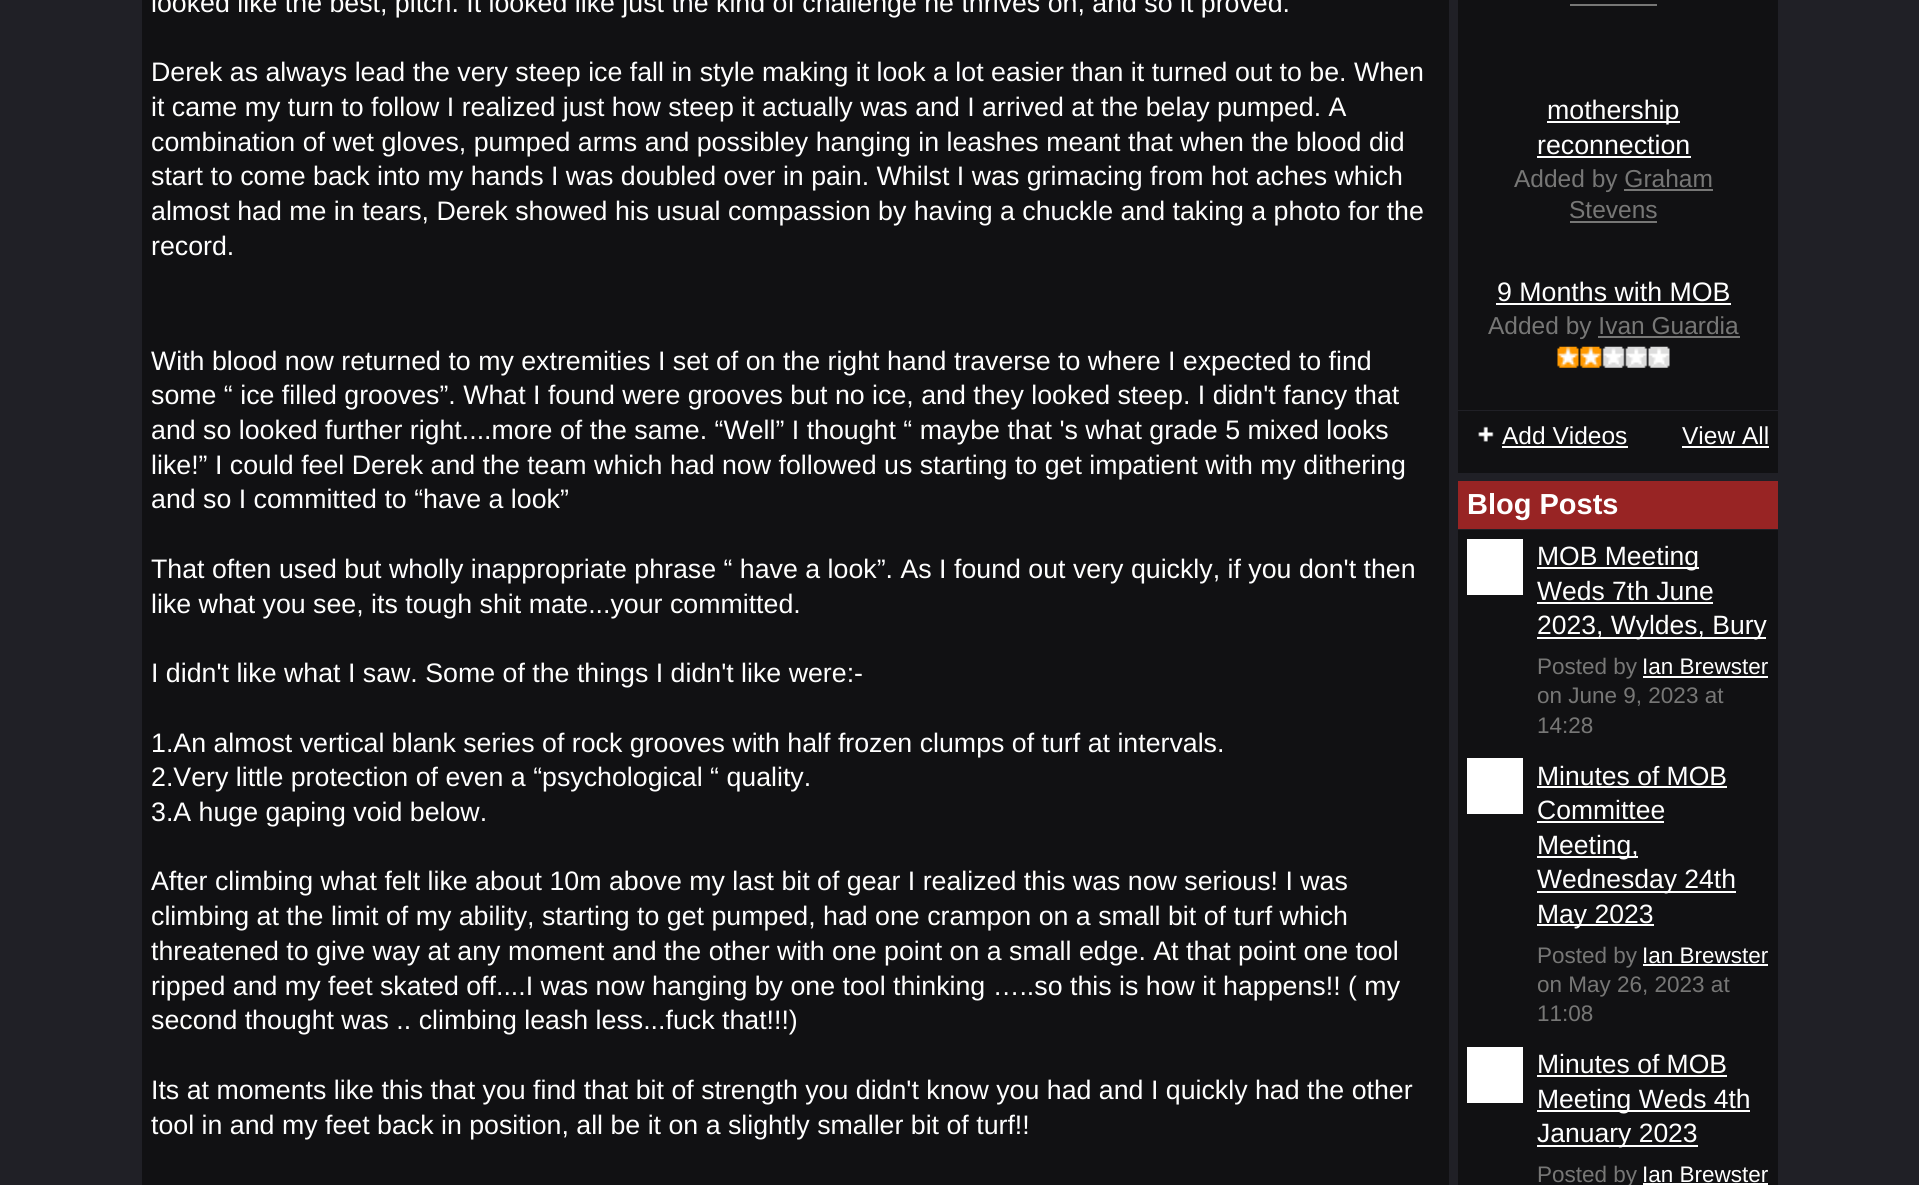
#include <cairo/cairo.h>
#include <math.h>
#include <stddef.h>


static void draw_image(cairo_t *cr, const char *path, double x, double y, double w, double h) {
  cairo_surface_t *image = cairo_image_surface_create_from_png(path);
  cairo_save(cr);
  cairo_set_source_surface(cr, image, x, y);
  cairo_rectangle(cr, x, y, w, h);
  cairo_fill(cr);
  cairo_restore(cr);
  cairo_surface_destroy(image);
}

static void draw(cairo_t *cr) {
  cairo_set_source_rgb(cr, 32 / 255.0, 32 / 255.0, 38 / 255.0);
  cairo_paint(cr);
  cairo_set_source_rgb(cr, 17 / 255.0, 17 / 255.0, 19 / 255.0);
  cairo_rectangle(cr, 142, 0, 1307, 1185);
  cairo_fill(cr);
  cairo_rectangle(cr, 1458, 0, 320, 410);
  cairo_fill(cr);
  cairo_set_source_rgb(cr, 119 / 255.0, 119 / 255.0, 118 / 255.0);
  cairo_rectangle(cr, 1570, 4, 87, 2);
  cairo_fill(cr);
  cairo_set_source_rgb(cr, 1, 1, 1);
  cairo_rectangle(cr, 1547, 121, 133, 2);
  cairo_fill(cr);
  cairo_rectangle(cr, 1537, 156, 154, 2);
  cairo_fill(cr);
  cairo_set_source_rgb(cr, 119 / 255.0, 119 / 255.0, 118 / 255.0);
  cairo_rectangle(cr, 1624, 189, 89, 2);
  cairo_fill(cr);
  cairo_rectangle(cr, 1570, 221, 87, 2);
  cairo_fill(cr);
  cairo_set_source_rgb(cr, 1, 1, 1);
  cairo_rectangle(cr, 1496, 303, 235, 2);
  cairo_fill(cr);
  cairo_set_source_rgb(cr, 119 / 255.0, 119 / 255.0, 118 / 255.0);
  cairo_rectangle(cr, 1598, 336, 142, 2);
  cairo_fill(cr);
  draw_image(cr, "images/1.png", 1557, 346, 113, 22);
  cairo_set_source_rgb(cr, 17 / 255.0, 17 / 255.0, 19 / 255.0);
  cairo_rectangle(cr, 1458, 411, 320, 62);
  cairo_fill(cr);
  draw_image(cr, "images/2.png", 1478, 426, 16, 16);
  cairo_set_source_rgb(cr, 1, 1, 1);
  cairo_rectangle(cr, 1502, 446, 126, 2);
  cairo_fill(cr);
  cairo_rectangle(cr, 1682, 446, 87, 2);
  cairo_fill(cr);
  cairo_set_source_rgb(cr, 152 / 255.0, 36 / 255.0, 36 / 255.0);
  cairo_rectangle(cr, 1458, 481, 320, 48);
  cairo_fill(cr);
  cairo_set_source_rgb(cr, 17 / 255.0, 17 / 255.0, 19 / 255.0);
  cairo_rectangle(cr, 1458, 530, 320, 655);
  cairo_fill(cr);
  cairo_set_source_rgb(cr, 1, 1, 1);
  cairo_rectangle(cr, 1467, 539, 56, 56);
  cairo_fill(cr);
  cairo_rectangle(cr, 1537, 567, 162, 2);
  cairo_fill(cr);
  cairo_rectangle(cr, 1537, 602, 176, 2);
  cairo_fill(cr);
  cairo_rectangle(cr, 1537, 637, 229, 2);
  cairo_fill(cr);
  cairo_rectangle(cr, 1643, 676, 125, 2);
  cairo_fill(cr);
  cairo_rectangle(cr, 1467, 758, 56, 56);
  cairo_fill(cr);
  cairo_rectangle(cr, 1537, 786, 190, 2);
  cairo_fill(cr);
  cairo_rectangle(cr, 1537, 821, 127, 2);
  cairo_fill(cr);
  cairo_rectangle(cr, 1537, 856, 101, 2);
  cairo_fill(cr);
  cairo_rectangle(cr, 1537, 891, 199, 2);
  cairo_fill(cr);
  cairo_rectangle(cr, 1537, 924, 117, 2);
  cairo_fill(cr);
  cairo_rectangle(cr, 1643, 964, 125, 2);
  cairo_fill(cr);
  cairo_rectangle(cr, 1467, 1047, 56, 56);
  cairo_fill(cr);
  cairo_rectangle(cr, 1537, 1075, 190, 2);
  cairo_fill(cr);
  cairo_rectangle(cr, 1537, 1110, 213, 2);
  cairo_fill(cr);
  cairo_rectangle(cr, 1537, 1145, 161, 2);
  cairo_fill(cr);
  cairo_rectangle(cr, 1643, 1183, 125, 2);
  cairo_fill(cr);
  cairo_select_font_face(cr, "Liberation Sans", CAIRO_FONT_SLANT_NORMAL, CAIRO_FONT_WEIGHT_NORMAL);
  cairo_set_font_size(cr, 26.75);
  cairo_move_to(cr, 151, 12);
  cairo_show_text(cr, "looked like the best, pitch. It looked like just the kind of challenge he thrives on, and so it proved.");
  cairo_move_to(cr, 151, 81);
  cairo_show_text(cr, "Derek as always lead the very steep ice fall in style making it look a lot easier than it turned out to be. When");
  cairo_move_to(cr, 151, 116);
  cairo_show_text(cr, "it came my turn to follow I realized just how steep it actually was and I arrived at the belay pumped. A");
  cairo_move_to(cr, 151, 151);
  cairo_show_text(cr, "combination of wet gloves, pumped arms and possibley hanging in leashes meant that when the blood did");
  cairo_move_to(cr, 151, 185);
  cairo_show_text(cr, "start to come back into my hands I was doubled over in pain. Whilst I was grimacing from hot aches which");
  cairo_move_to(cr, 151, 220);
  cairo_show_text(cr, "almost had me in tears, Derek showed his usual compassion by having a chuckle and taking a photo for the");
  cairo_move_to(cr, 151, 255);
  cairo_show_text(cr, "record.");
  cairo_move_to(cr, 151, 370);
  cairo_show_text(cr, "With blood now returned to my extremities I set of on the right hand traverse to where I expected to find");
  cairo_move_to(cr, 151, 404);
  cairo_show_text(cr, "some “ ice filled grooves”. What I found were grooves but no ice, and they looked steep. I didn't fancy that");
  cairo_move_to(cr, 151, 439);
  cairo_show_text(cr, "and so looked further right....more of the same. “Well” I thought “ maybe that 's what grade 5 mixed looks");
  cairo_move_to(cr, 151, 474);
  cairo_show_text(cr, "like!” I could feel Derek and the team which had now followed us starting to get impatient with my dithering");
  cairo_move_to(cr, 151, 508);
  cairo_show_text(cr, "and so I committed to “have a look”");
  cairo_move_to(cr, 151, 578);
  cairo_show_text(cr, "That often used but wholly inappropriate phrase “ have a look”. As I found out very quickly, if you don't then");
  cairo_move_to(cr, 151, 613);
  cairo_show_text(cr, "like what you see, its tough shit mate...your committed.");
  cairo_move_to(cr, 151, 682);
  cairo_show_text(cr, "I didn't like what I saw. Some of the things I didn't like were:-");
  cairo_move_to(cr, 151, 752);
  cairo_show_text(cr, "1.An almost vertical blank series of rock grooves with half frozen clumps of turf at intervals.");
  cairo_move_to(cr, 151, 786);
  cairo_show_text(cr, "2.Very little protection of even a “psychological “ quality.");
  cairo_move_to(cr, 151, 821);
  cairo_show_text(cr, "3.A huge gaping void below.");
  cairo_move_to(cr, 151, 890);
  cairo_show_text(cr, "After climbing what felt like about 10m above my last bit of gear I realized this was now serious! I was");
  cairo_move_to(cr, 151, 925);
  cairo_show_text(cr, "climbing at the limit of my ability, starting to get pumped, had one crampon on a small bit of turf which");
  cairo_move_to(cr, 151, 960);
  cairo_show_text(cr, "threatened to give way at any moment and the other with one point on a small edge. At that point one tool");
  cairo_move_to(cr, 151, 995);
  cairo_show_text(cr, "ripped and my feet skated off....I was now hanging by one tool thinking …..so this is how it happens!! ( my");
  cairo_move_to(cr, 151, 1029);
  cairo_show_text(cr, "second thought was .. climbing leash less...fuck that!!!)");
  cairo_move_to(cr, 151, 1099);
  cairo_show_text(cr, "Its at moments like this that you find that bit of strength you didn't know you had and I quickly had the other");
  cairo_move_to(cr, 151, 1134);
  cairo_show_text(cr, "tool in and my feet back in position, all be it on a slightly smaller bit of turf!!");
  cairo_move_to(cr, 1547, 119);
  cairo_show_text(cr, "mothership");
  cairo_move_to(cr, 1537, 154);
  cairo_show_text(cr, "reconnection");
  cairo_set_font_size(cr, 24.5);
  cairo_set_source_rgb(cr, 119 / 255.0, 119 / 255.0, 118 / 255.0);
  cairo_move_to(cr, 1514, 187);
  cairo_show_text(cr, "Added by Graham");
  cairo_move_to(cr, 1569, 218);
  cairo_show_text(cr, "Stevens");
  cairo_set_font_size(cr, 26.75);
  cairo_set_source_rgb(cr, 1, 1, 1);
  cairo_move_to(cr, 1497, 301);
  cairo_show_text(cr, "9 Months with MOB");
  cairo_set_font_size(cr, 24.5);
  cairo_set_source_rgb(cr, 119 / 255.0, 119 / 255.0, 118 / 255.0);
  cairo_move_to(cr, 1488, 334);
  cairo_show_text(cr, "Added by Ivan Guardia");
  cairo_set_source_rgb(cr, 1, 1, 1);
  cairo_move_to(cr, 1502, 444);
  cairo_show_text(cr, "Add Videos");
  cairo_move_to(cr, 1682, 444);
  cairo_show_text(cr, "View All");
  cairo_select_font_face(cr, "Liberation Sans", CAIRO_FONT_SLANT_NORMAL, CAIRO_FONT_WEIGHT_BOLD);
  cairo_set_font_size(cr, 29);
  cairo_move_to(cr, 1467, 514);
  cairo_show_text(cr, "Blog Posts");
  cairo_select_font_face(cr, "Liberation Sans", CAIRO_FONT_SLANT_NORMAL, CAIRO_FONT_WEIGHT_NORMAL);
  cairo_set_font_size(cr, 26.5);
  cairo_move_to(cr, 1537, 565);
  cairo_show_text(cr, "MOB Meeting");
  cairo_move_to(cr, 1537, 600);
  cairo_show_text(cr, "Weds 7th June");
  cairo_move_to(cr, 1537, 634);
  cairo_show_text(cr, "2023, Wyldes, Bury");
  cairo_set_font_size(cr, 22.5);
  cairo_set_source_rgb(cr, 119 / 255.0, 119 / 255.0, 118 / 255.0);
  cairo_move_to(cr, 1537, 674);
  cairo_show_text(cr, "Posted by");
  cairo_set_source_rgb(cr, 1, 1, 1);
  cairo_move_to(cr, 1642, 674);
  cairo_show_text(cr, "Ian Brewster");
  cairo_set_source_rgb(cr, 119 / 255.0, 119 / 255.0, 118 / 255.0);
  cairo_move_to(cr, 1537, 703);
  cairo_show_text(cr, "on June 9, 2023 at");
  cairo_move_to(cr, 1537, 733);
  cairo_show_text(cr, "14:28");
  cairo_set_font_size(cr, 26.5);
  cairo_set_source_rgb(cr, 1, 1, 1);
  cairo_move_to(cr, 1537, 785);
  cairo_show_text(cr, "Minutes of MOB");
  cairo_move_to(cr, 1537, 819);
  cairo_show_text(cr, "Committee");
  cairo_move_to(cr, 1537, 854);
  cairo_show_text(cr, "Meeting,");
  cairo_move_to(cr, 1537, 888);
  cairo_show_text(cr, "Wednesday 24th");
  cairo_move_to(cr, 1537, 923);
  cairo_show_text(cr, "May 2023");
  cairo_set_font_size(cr, 22.5);
  cairo_set_source_rgb(cr, 119 / 255.0, 119 / 255.0, 118 / 255.0);
  cairo_move_to(cr, 1537, 963);
  cairo_show_text(cr, "Posted by");
  cairo_set_source_rgb(cr, 1, 1, 1);
  cairo_move_to(cr, 1642, 963);
  cairo_show_text(cr, "Ian Brewster");
  cairo_set_source_rgb(cr, 119 / 255.0, 119 / 255.0, 118 / 255.0);
  cairo_move_to(cr, 1537, 992);
  cairo_show_text(cr, "on May 26, 2023 at");
  cairo_move_to(cr, 1537, 1021);
  cairo_show_text(cr, "11:08");
  cairo_set_font_size(cr, 26.5);
  cairo_set_source_rgb(cr, 1, 1, 1);
  cairo_move_to(cr, 1537, 1073);
  cairo_show_text(cr, "Minutes of MOB");
  cairo_move_to(cr, 1537, 1108);
  cairo_show_text(cr, "Meeting Weds 4th");
  cairo_move_to(cr, 1537, 1142);
  cairo_show_text(cr, "January 2023");
  cairo_set_font_size(cr, 22.5);
  cairo_set_source_rgb(cr, 119 / 255.0, 119 / 255.0, 118 / 255.0);
  cairo_move_to(cr, 1537, 1182);
  cairo_show_text(cr, "Posted by");
  cairo_set_source_rgb(cr, 1, 1, 1);
  cairo_move_to(cr, 1642, 1182);
  cairo_show_text(cr, "Ian Brewster");
}

int main(void) {
  cairo_surface_t *surface = cairo_image_surface_create(CAIRO_FORMAT_RGB24, 1919, 1185);
  cairo_t *cr = cairo_create(surface);
  cairo_font_options_t *options = cairo_font_options_create();
  cairo_font_options_set_hint_metrics(options, CAIRO_HINT_METRICS_OFF);
  cairo_font_options_set_hint_style(options, CAIRO_HINT_STYLE_NONE);
  cairo_set_font_options(cr, options);
  cairo_set_miter_limit(cr, 4);
  draw(cr);
  cairo_surface_write_to_png(surface, "out.png");
  cairo_font_options_destroy(options);
  cairo_destroy(cr);
  cairo_surface_destroy(surface);
  return 0;
}
